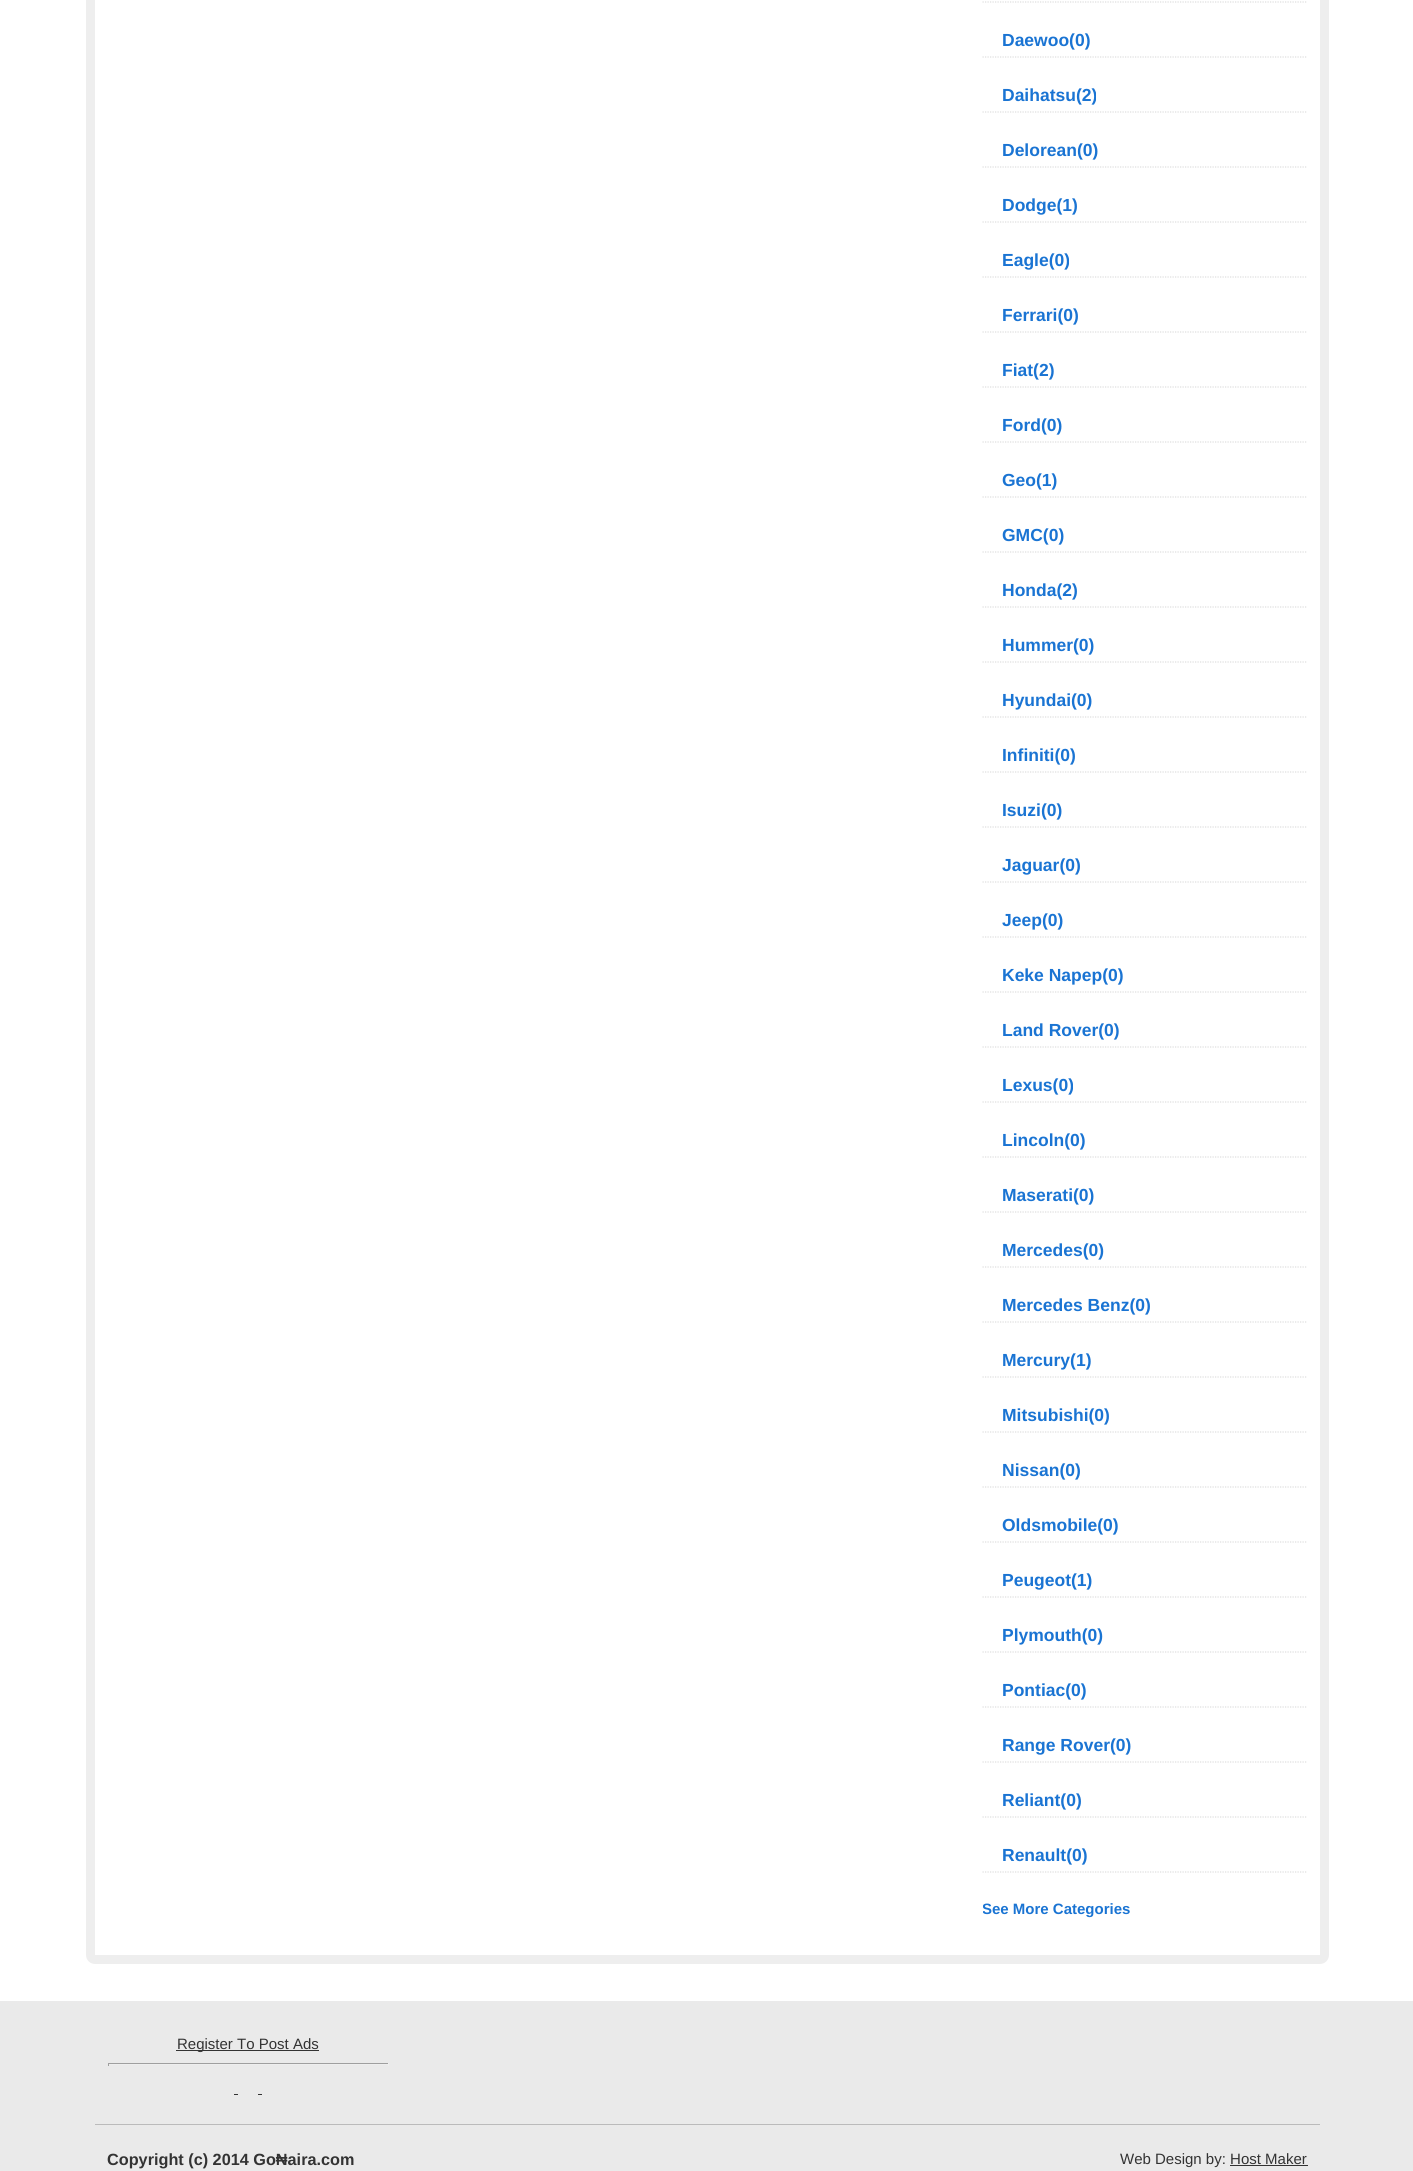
#include <cairo/cairo.h>
#include <math.h>
#include <stddef.h>


static void rounded_rect(cairo_t *cr, double x, double y, double w, double h, double r) {
  cairo_new_sub_path(cr);
  cairo_arc(cr, x + w - r, y + h - r, r, 0, M_PI / 2);
  cairo_arc(cr, x + r, y + h - r, r, M_PI / 2, M_PI);
  cairo_arc(cr, x + r, y + r, r, M_PI, 1.5 * M_PI);
  cairo_arc(cr, x + w - r, y + r, r, 1.5 * M_PI, 2 * M_PI);
  cairo_close_path(cr);
}

static void draw(cairo_t *cr) {
  cairo_set_source_rgb(cr, 1, 1, 1);
  cairo_paint(cr);
  rounded_rect(cr, 90.5, -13.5, 1234, 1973, 4.5);
  cairo_set_source_rgb(cr, 238 / 255.0, 238 / 255.0, 238 / 255.0);
  cairo_set_line_width(cr, 9);
  cairo_stroke(cr);
  cairo_new_path(cr);
  cairo_move_to(cr, 982.5, 2);
  cairo_line_to(cr, 1307.5, 2);
  cairo_set_source_rgb(cr, 222 / 255.0, 222 / 255.0, 222 / 255.0);
  cairo_set_line_width(cr, 1.2);
  cairo_set_dash(cr, (double[]){1.25, 1.25}, 2, 0);
  cairo_stroke(cr);
  cairo_new_path(cr);
  cairo_move_to(cr, 982.5, 57);
  cairo_line_to(cr, 1307.5, 57);
  cairo_stroke(cr);
  cairo_new_path(cr);
  cairo_move_to(cr, 982.5, 112);
  cairo_line_to(cr, 1307.5, 112);
  cairo_stroke(cr);
  cairo_new_path(cr);
  cairo_move_to(cr, 982.5, 167);
  cairo_line_to(cr, 1307.5, 167);
  cairo_stroke(cr);
  cairo_new_path(cr);
  cairo_move_to(cr, 982.5, 222);
  cairo_line_to(cr, 1307.5, 222);
  cairo_stroke(cr);
  cairo_new_path(cr);
  cairo_move_to(cr, 982.5, 277);
  cairo_line_to(cr, 1307.5, 277);
  cairo_stroke(cr);
  cairo_new_path(cr);
  cairo_move_to(cr, 982.5, 332);
  cairo_line_to(cr, 1307.5, 332);
  cairo_stroke(cr);
  cairo_new_path(cr);
  cairo_move_to(cr, 982.5, 387);
  cairo_line_to(cr, 1307.5, 387);
  cairo_stroke(cr);
  cairo_new_path(cr);
  cairo_move_to(cr, 982.5, 442);
  cairo_line_to(cr, 1307.5, 442);
  cairo_stroke(cr);
  cairo_new_path(cr);
  cairo_move_to(cr, 982.5, 497);
  cairo_line_to(cr, 1307.5, 497);
  cairo_stroke(cr);
  cairo_new_path(cr);
  cairo_move_to(cr, 982.5, 552);
  cairo_line_to(cr, 1307.5, 552);
  cairo_stroke(cr);
  cairo_new_path(cr);
  cairo_move_to(cr, 982.5, 607);
  cairo_line_to(cr, 1307.5, 607);
  cairo_stroke(cr);
  cairo_new_path(cr);
  cairo_move_to(cr, 982.5, 662);
  cairo_line_to(cr, 1307.5, 662);
  cairo_stroke(cr);
  cairo_new_path(cr);
  cairo_move_to(cr, 982.5, 717);
  cairo_line_to(cr, 1307.5, 717);
  cairo_stroke(cr);
  cairo_new_path(cr);
  cairo_move_to(cr, 982.5, 772);
  cairo_line_to(cr, 1307.5, 772);
  cairo_stroke(cr);
  cairo_new_path(cr);
  cairo_move_to(cr, 982.5, 827);
  cairo_line_to(cr, 1307.5, 827);
  cairo_stroke(cr);
  cairo_new_path(cr);
  cairo_move_to(cr, 982.5, 882);
  cairo_line_to(cr, 1307.5, 882);
  cairo_stroke(cr);
  cairo_new_path(cr);
  cairo_move_to(cr, 982.5, 937);
  cairo_line_to(cr, 1307.5, 937);
  cairo_stroke(cr);
  cairo_new_path(cr);
  cairo_move_to(cr, 982.5, 992);
  cairo_line_to(cr, 1307.5, 992);
  cairo_stroke(cr);
  cairo_new_path(cr);
  cairo_move_to(cr, 982.5, 1047);
  cairo_line_to(cr, 1307.5, 1047);
  cairo_stroke(cr);
  cairo_new_path(cr);
  cairo_move_to(cr, 982.5, 1102);
  cairo_line_to(cr, 1307.5, 1102);
  cairo_stroke(cr);
  cairo_new_path(cr);
  cairo_move_to(cr, 982.5, 1157);
  cairo_line_to(cr, 1307.5, 1157);
  cairo_stroke(cr);
  cairo_new_path(cr);
  cairo_move_to(cr, 982.5, 1212);
  cairo_line_to(cr, 1307.5, 1212);
  cairo_stroke(cr);
  cairo_new_path(cr);
  cairo_move_to(cr, 982.5, 1267);
  cairo_line_to(cr, 1307.5, 1267);
  cairo_stroke(cr);
  cairo_new_path(cr);
  cairo_move_to(cr, 982.5, 1322);
  cairo_line_to(cr, 1307.5, 1322);
  cairo_stroke(cr);
  cairo_new_path(cr);
  cairo_move_to(cr, 982.5, 1377);
  cairo_line_to(cr, 1307.5, 1377);
  cairo_stroke(cr);
  cairo_new_path(cr);
  cairo_move_to(cr, 982.5, 1432);
  cairo_line_to(cr, 1307.5, 1432);
  cairo_stroke(cr);
  cairo_new_path(cr);
  cairo_move_to(cr, 982.5, 1487);
  cairo_line_to(cr, 1307.5, 1487);
  cairo_stroke(cr);
  cairo_new_path(cr);
  cairo_move_to(cr, 982.5, 1542);
  cairo_line_to(cr, 1307.5, 1542);
  cairo_stroke(cr);
  cairo_new_path(cr);
  cairo_move_to(cr, 982.5, 1597);
  cairo_line_to(cr, 1307.5, 1597);
  cairo_stroke(cr);
  cairo_new_path(cr);
  cairo_move_to(cr, 982.5, 1652);
  cairo_line_to(cr, 1307.5, 1652);
  cairo_stroke(cr);
  cairo_new_path(cr);
  cairo_move_to(cr, 982.5, 1707);
  cairo_line_to(cr, 1307.5, 1707);
  cairo_stroke(cr);
  cairo_new_path(cr);
  cairo_move_to(cr, 982.5, 1762);
  cairo_line_to(cr, 1307.5, 1762);
  cairo_stroke(cr);
  cairo_new_path(cr);
  cairo_move_to(cr, 982.5, 1817);
  cairo_line_to(cr, 1307.5, 1817);
  cairo_stroke(cr);
  cairo_new_path(cr);
  cairo_move_to(cr, 982.5, 1872);
  cairo_line_to(cr, 1307.5, 1872);
  cairo_stroke(cr);
  cairo_set_source_rgb(cr, 234 / 255.0, 234 / 255.0, 234 / 255.0);
  cairo_rectangle(cr, 0, 2001, 1413, 170);
  cairo_fill(cr);
  cairo_set_source_rgb(cr, 51 / 255.0, 51 / 255.0, 51 / 255.0);
  cairo_rectangle(cr, 176, 2050, 143, 1);
  cairo_fill(cr);
  cairo_set_source_rgb(cr, 159 / 255.0, 159 / 255.0, 159 / 255.0);
  cairo_rectangle(cr, 108, 2063, 281, 1);
  cairo_fill(cr);
  cairo_set_source_rgb(cr, 238 / 255.0, 238 / 255.0, 238 / 255.0);
  cairo_rectangle(cr, 388, 2063, 1, 3);
  cairo_fill(cr);
  cairo_rectangle(cr, 108, 2064, 281, 1);
  cairo_fill(cr);
  cairo_set_source_rgb(cr, 159 / 255.0, 159 / 255.0, 159 / 255.0);
  cairo_rectangle(cr, 108, 2063, 1, 3);
  cairo_fill(cr);
  cairo_set_source_rgb(cr, 51 / 255.0, 51 / 255.0, 51 / 255.0);
  cairo_rectangle(cr, 234, 2094, 4, 1);
  cairo_fill(cr);
  cairo_rectangle(cr, 258, 2094, 4, 1);
  cairo_fill(cr);
  cairo_set_source_rgb(cr, 187 / 255.0, 187 / 255.0, 187 / 255.0);
  cairo_rectangle(cr, 95, 2124, 1225, 1);
  cairo_fill(cr);
  cairo_set_source_rgb(cr, 51 / 255.0, 51 / 255.0, 51 / 255.0);
  cairo_rectangle(cr, 1230, 2165, 78, 1);
  cairo_fill(cr);
  cairo_select_font_face(cr, "Liberation Sans", CAIRO_FONT_SLANT_NORMAL, CAIRO_FONT_WEIGHT_BOLD);
  cairo_set_font_size(cr, 17.5);
  cairo_set_source_rgb(cr, 26 / 255.0, 116 / 255.0, 211 / 255.0);
  cairo_move_to(cr, 1002, 46);
  cairo_show_text(cr, "Daewoo(0)");
  cairo_move_to(cr, 1002, 101);
  cairo_show_text(cr, "Daihatsu(2)");
  cairo_move_to(cr, 1002, 156);
  cairo_show_text(cr, "Delorean(0)");
  cairo_move_to(cr, 1002, 211);
  cairo_show_text(cr, "Dodge(1)");
  cairo_move_to(cr, 1002, 266);
  cairo_show_text(cr, "Eagle(0)");
  cairo_move_to(cr, 1002, 321);
  cairo_show_text(cr, "Ferrari(0)");
  cairo_move_to(cr, 1002, 376);
  cairo_show_text(cr, "Fiat(2)");
  cairo_move_to(cr, 1002, 431);
  cairo_show_text(cr, "Ford(0)");
  cairo_move_to(cr, 1002, 486);
  cairo_show_text(cr, "Geo(1)");
  cairo_move_to(cr, 1002, 541);
  cairo_show_text(cr, "GMC(0)");
  cairo_move_to(cr, 1002, 596);
  cairo_show_text(cr, "Honda(2)");
  cairo_move_to(cr, 1002, 651);
  cairo_show_text(cr, "Hummer(0)");
  cairo_move_to(cr, 1002, 706);
  cairo_show_text(cr, "Hyundai(0)");
  cairo_move_to(cr, 1002, 761);
  cairo_show_text(cr, "Infiniti(0)");
  cairo_move_to(cr, 1002, 816);
  cairo_show_text(cr, "Isuzi(0)");
  cairo_move_to(cr, 1002, 871);
  cairo_show_text(cr, "Jaguar(0)");
  cairo_move_to(cr, 1002, 926);
  cairo_show_text(cr, "Jeep(0)");
  cairo_move_to(cr, 1002, 981);
  cairo_show_text(cr, "Keke Napep(0)");
  cairo_move_to(cr, 1002, 1036);
  cairo_show_text(cr, "Land Rover(0)");
  cairo_move_to(cr, 1002, 1091);
  cairo_show_text(cr, "Lexus(0)");
  cairo_move_to(cr, 1002, 1146);
  cairo_show_text(cr, "Lincoln(0)");
  cairo_move_to(cr, 1002, 1201);
  cairo_show_text(cr, "Maserati(0)");
  cairo_move_to(cr, 1002, 1256);
  cairo_show_text(cr, "Mercedes(0)");
  cairo_move_to(cr, 1002, 1311);
  cairo_show_text(cr, "Mercedes Benz(0)");
  cairo_move_to(cr, 1002, 1366);
  cairo_show_text(cr, "Mercury(1)");
  cairo_move_to(cr, 1002, 1421);
  cairo_show_text(cr, "Mitsubishi(0)");
  cairo_move_to(cr, 1002, 1476);
  cairo_show_text(cr, "Nissan(0)");
  cairo_move_to(cr, 1002, 1531);
  cairo_show_text(cr, "Oldsmobile(0)");
  cairo_move_to(cr, 1002, 1586);
  cairo_show_text(cr, "Peugeot(1)");
  cairo_move_to(cr, 1002, 1641);
  cairo_show_text(cr, "Plymouth(0)");
  cairo_move_to(cr, 1002, 1696);
  cairo_show_text(cr, "Pontiac(0)");
  cairo_move_to(cr, 1002, 1751);
  cairo_show_text(cr, "Range Rover(0)");
  cairo_move_to(cr, 1002, 1806);
  cairo_show_text(cr, "Reliant(0)");
  cairo_move_to(cr, 1002, 1861);
  cairo_show_text(cr, "Renault(0)");
  cairo_save(cr);
  cairo_rectangle(cr, 983, 0, 325, 1918);
  cairo_clip(cr);
  cairo_set_font_size(cr, 15);
  cairo_move_to(cr, 982, 1914);
  cairo_show_text(cr, "See More Categories");
  cairo_restore(cr);
  cairo_select_font_face(cr, "Liberation Sans", CAIRO_FONT_SLANT_NORMAL, CAIRO_FONT_WEIGHT_NORMAL);
  cairo_set_font_size(cr, 15);
  cairo_set_source_rgb(cr, 51 / 255.0, 51 / 255.0, 51 / 255.0);
  cairo_move_to(cr, 177, 2049);
  cairo_show_text(cr, "Register To Post Ads");
  cairo_select_font_face(cr, "Liberation Sans", CAIRO_FONT_SLANT_NORMAL, CAIRO_FONT_WEIGHT_BOLD);
  cairo_set_font_size(cr, 16.25);
  cairo_move_to(cr, 107, 2165);
  cairo_show_text(cr, "Copyright (c) 2014 Go₦aira.com");
  cairo_select_font_face(cr, "Liberation Sans", CAIRO_FONT_SLANT_NORMAL, CAIRO_FONT_WEIGHT_NORMAL);
  cairo_set_font_size(cr, 15);
  cairo_move_to(cr, 1120, 2164);
  cairo_show_text(cr, "Web Design by: Host Maker");
}

int main(void) {
  cairo_surface_t *surface = cairo_image_surface_create(CAIRO_FORMAT_RGB24, 1413, 2171);
  cairo_t *cr = cairo_create(surface);
  cairo_font_options_t *options = cairo_font_options_create();
  cairo_font_options_set_hint_metrics(options, CAIRO_HINT_METRICS_OFF);
  cairo_font_options_set_hint_style(options, CAIRO_HINT_STYLE_NONE);
  cairo_set_font_options(cr, options);
  cairo_set_miter_limit(cr, 4);
  draw(cr);
  cairo_surface_write_to_png(surface, "out.png");
  cairo_font_options_destroy(options);
  cairo_destroy(cr);
  cairo_surface_destroy(surface);
  return 0;
}
